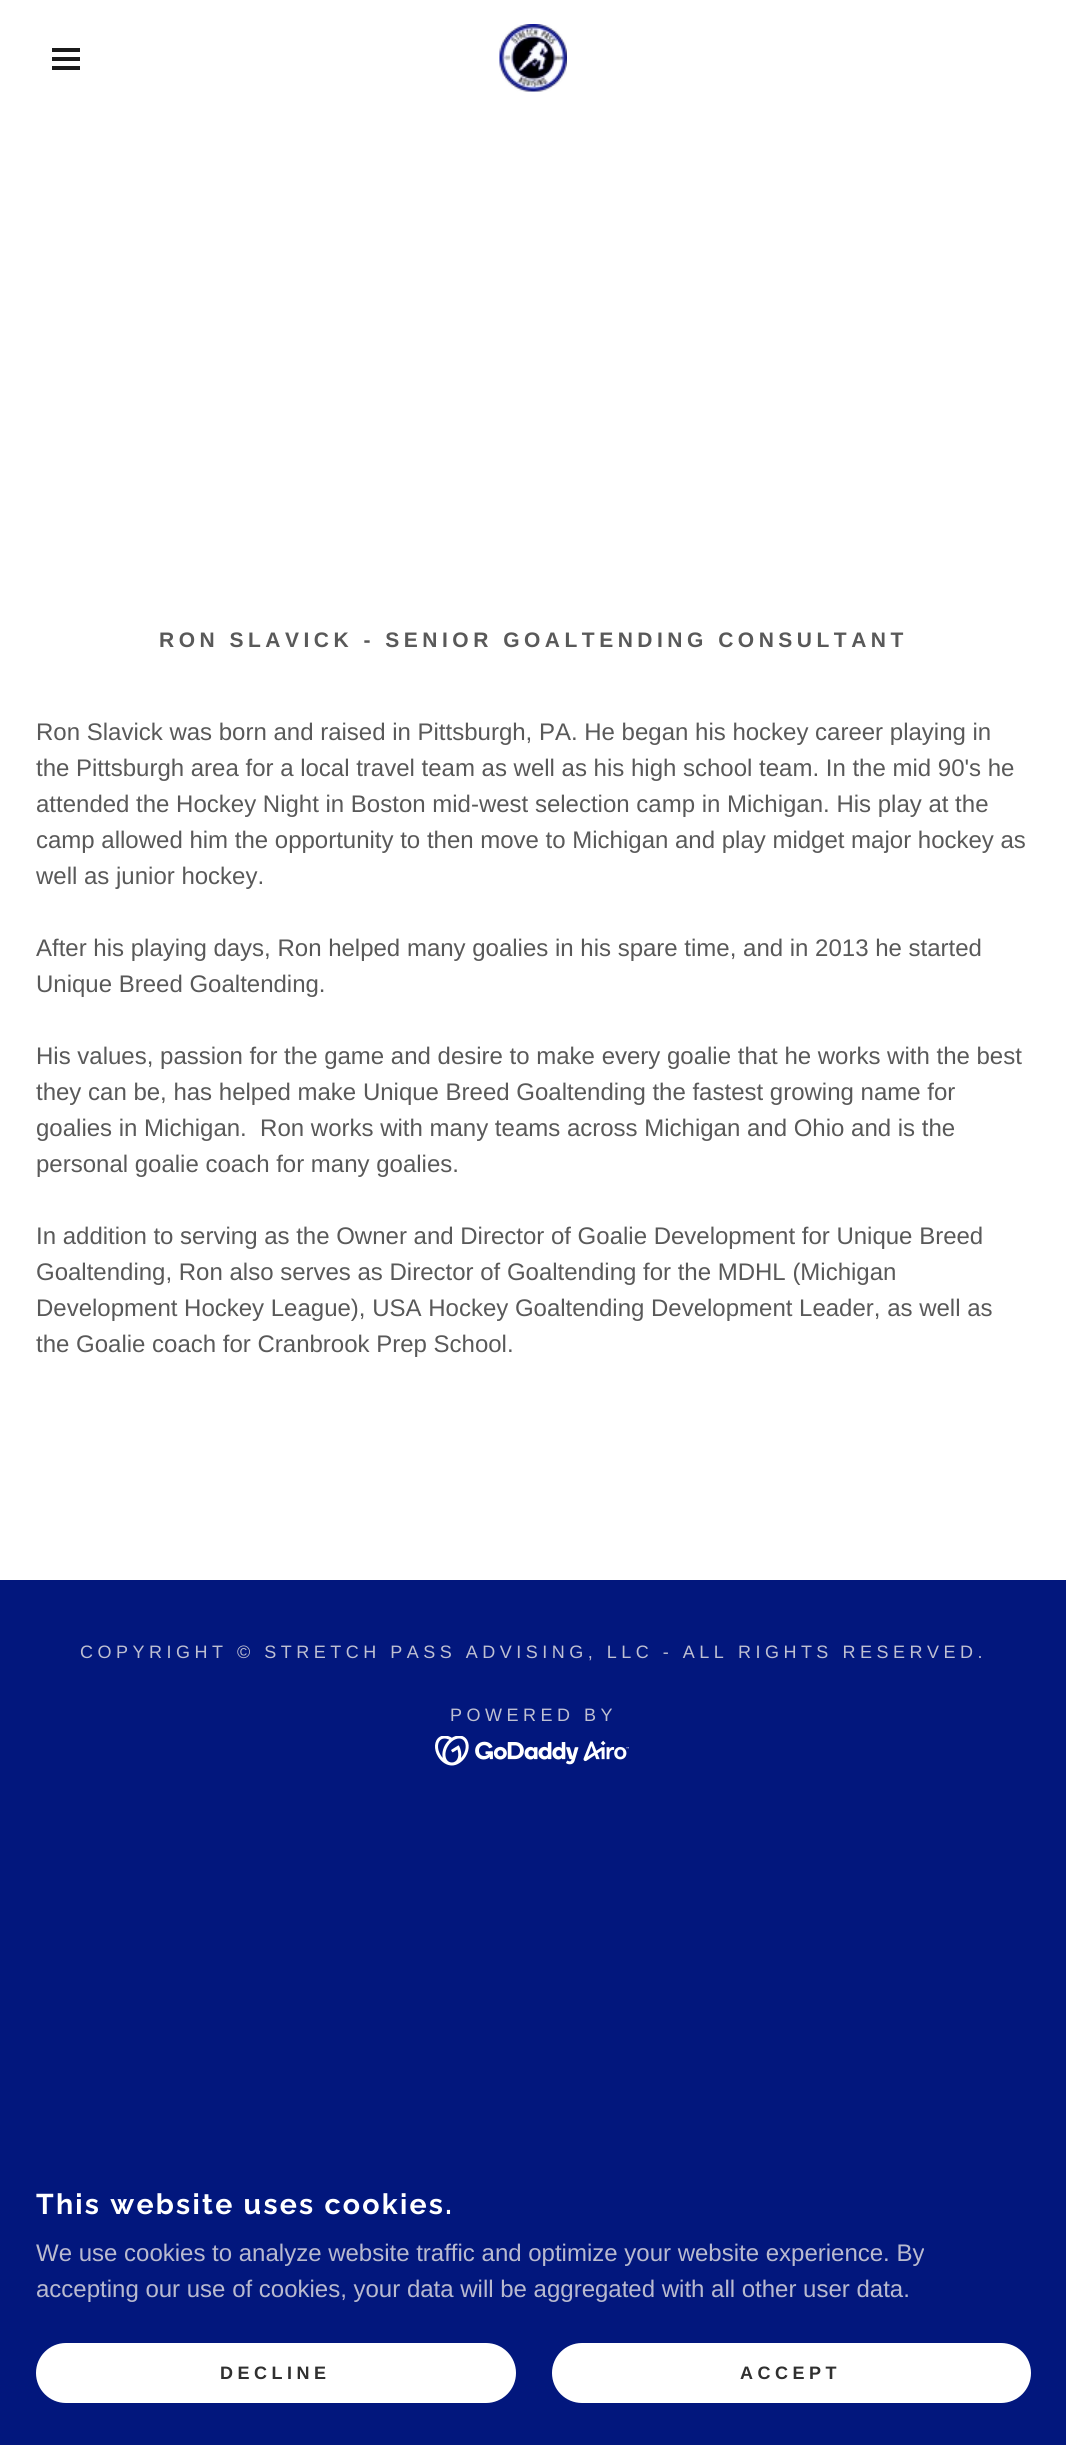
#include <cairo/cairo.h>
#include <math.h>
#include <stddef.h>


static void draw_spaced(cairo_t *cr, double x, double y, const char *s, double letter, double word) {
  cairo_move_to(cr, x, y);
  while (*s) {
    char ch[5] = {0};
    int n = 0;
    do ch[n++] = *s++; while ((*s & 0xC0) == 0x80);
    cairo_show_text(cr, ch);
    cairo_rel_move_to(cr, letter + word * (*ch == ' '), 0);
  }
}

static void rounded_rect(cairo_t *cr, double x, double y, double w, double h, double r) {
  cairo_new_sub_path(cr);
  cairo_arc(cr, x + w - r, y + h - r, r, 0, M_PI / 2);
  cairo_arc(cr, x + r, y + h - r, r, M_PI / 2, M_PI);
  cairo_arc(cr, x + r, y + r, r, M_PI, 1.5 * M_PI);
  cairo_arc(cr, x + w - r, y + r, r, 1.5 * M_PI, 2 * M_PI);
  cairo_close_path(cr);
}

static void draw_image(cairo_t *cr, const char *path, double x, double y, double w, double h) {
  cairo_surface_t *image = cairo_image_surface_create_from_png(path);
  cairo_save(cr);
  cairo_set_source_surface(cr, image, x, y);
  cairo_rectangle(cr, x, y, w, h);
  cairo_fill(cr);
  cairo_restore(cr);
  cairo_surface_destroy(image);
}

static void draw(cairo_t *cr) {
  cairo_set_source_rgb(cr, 2 / 255.0, 23 / 255.0, 125 / 255.0);
  cairo_paint(cr);
  cairo_set_source_rgb(cr, 1, 1, 1);
  cairo_rectangle(cr, 0, 0, 1066, 1580);
  cairo_fill(cr);
  cairo_set_source_rgb(cr, 27 / 255.0, 27 / 255.0, 27 / 255.0);
  cairo_rectangle(cr, 52, 48, 28, 4);
  cairo_fill(cr);
  cairo_rectangle(cr, 52, 57, 28, 4);
  cairo_fill(cr);
  cairo_rectangle(cr, 52, 66, 28, 4);
  cairo_fill(cr);
  draw_image(cr, "images/1.png", 499, 24, 68, 68);
  draw_image(cr, "images/2.png", 435, 1736, 194, 30);
  cairo_set_source_rgb(cr, 1, 1, 1);
  rounded_rect(cr, 36, 2343, 480, 60, 30);
  cairo_fill(cr);
  rounded_rect(cr, 552, 2343, 479, 60, 30);
  cairo_fill(cr);
  cairo_select_font_face(cr, "Liberation Sans", CAIRO_FONT_SLANT_NORMAL, CAIRO_FONT_WEIGHT_BOLD);
  cairo_set_font_size(cr, 21);
  cairo_set_source_rgb(cr, 89 / 255.0, 89 / 255.0, 89 / 255.0);
  draw_spaced(cr, 159, 647, "RON SLAVICK - SENIOR GOALTENDING CONSULTANT", 4.5, 0);
  cairo_select_font_face(cr, "Liberation Sans", CAIRO_FONT_SLANT_NORMAL, CAIRO_FONT_WEIGHT_NORMAL);
  cairo_set_font_size(cr, 24);
  cairo_move_to(cr, 36, 740);
  cairo_show_text(cr, "Ron Slavick was born and raised in Pittsburgh, PA. He began his hockey career playing in");
  cairo_move_to(cr, 36, 776);
  cairo_show_text(cr, "the Pittsburgh area for a local travel team as well as his high school team. In the mid 90's he");
  cairo_move_to(cr, 36, 812);
  cairo_show_text(cr, "attended the Hockey Night in Boston mid-west selection camp in Michigan. His play at the");
  cairo_move_to(cr, 36, 848);
  cairo_show_text(cr, "camp allowed him the opportunity to then move to Michigan and play midget major hockey as");
  cairo_move_to(cr, 36, 884);
  cairo_show_text(cr, "well as junior hockey.");
  cairo_move_to(cr, 36, 956);
  cairo_show_text(cr, "After his playing days, Ron helped many goalies in his spare time, and in 2013 he started");
  cairo_move_to(cr, 36, 992);
  cairo_show_text(cr, "Unique Breed Goaltending.");
  cairo_move_to(cr, 36, 1064);
  cairo_show_text(cr, "His values, passion for the game and desire to make every goalie that he works with the best");
  cairo_move_to(cr, 36, 1100);
  cairo_show_text(cr, "they can be, has helped make Unique Breed Goaltending the fastest growing name for");
  cairo_move_to(cr, 36, 1136);
  cairo_show_text(cr, "goalies in Michigan.  Ron works with many teams across Michigan and Ohio and is the");
  cairo_move_to(cr, 36, 1172);
  cairo_show_text(cr, "personal goalie coach for many goalies.");
  cairo_move_to(cr, 36, 1244);
  cairo_show_text(cr, "In addition to serving as the Owner and Director of Goalie Development for Unique Breed");
  cairo_move_to(cr, 36, 1280);
  cairo_show_text(cr, "Goaltending, Ron also serves as Director of Goaltending for the MDHL (Michigan");
  cairo_move_to(cr, 36, 1316);
  cairo_show_text(cr, "Development Hockey League), USA Hockey Goaltending Development Leader, as well as");
  cairo_move_to(cr, 36, 1352);
  cairo_show_text(cr, "the Goalie coach for Cranbrook Prep School.");
  cairo_set_font_size(cr, 18);
  cairo_set_source_rgb(cr, 191 / 255.0, 192 / 255.0, 210 / 255.0);
  draw_spaced(cr, 80, 1658, "COPYRIGHT © STRETCH PASS ADVISING, LLC - ALL RIGHTS RESERVED.", 4.5, 0);
  draw_spaced(cr, 450, 1721, "POWERED BY", 4.5, 0);
  cairo_select_font_face(cr, "Raleway", CAIRO_FONT_SLANT_NORMAL, CAIRO_FONT_WEIGHT_BOLD);
  cairo_set_font_size(cr, 28.5);
  cairo_set_source_rgb(cr, 1, 1, 1);
  draw_spaced(cr, 36, 2214, "This website uses cookies.", 2.25, 0);
  cairo_select_font_face(cr, "Liberation Sans", CAIRO_FONT_SLANT_NORMAL, CAIRO_FONT_WEIGHT_NORMAL);
  cairo_set_font_size(cr, 24);
  cairo_set_source_rgb(cr, 185 / 255.0, 186 / 255.0, 207 / 255.0);
  cairo_move_to(cr, 36, 2261);
  cairo_show_text(cr, "We use cookies to analyze website traffic and optimize your website experience. By");
  cairo_move_to(cr, 36, 2297);
  cairo_show_text(cr, "accepting our use of cookies, your data will be aggregated with all other user data.");
  cairo_select_font_face(cr, "Liberation Sans", CAIRO_FONT_SLANT_NORMAL, CAIRO_FONT_WEIGHT_BOLD);
  cairo_set_font_size(cr, 18);
  cairo_set_source_rgb(cr, 48 / 255.0, 48 / 255.0, 48 / 255.0);
  draw_spaced(cr, 220, 2379, "DECLINE", 4.5, 0);
  draw_spaced(cr, 740, 2379, "ACCEPT", 4.5, 0);
}

int main(void) {
  cairo_surface_t *surface = cairo_image_surface_create(CAIRO_FORMAT_RGB24, 1066, 2445);
  cairo_t *cr = cairo_create(surface);
  cairo_font_options_t *options = cairo_font_options_create();
  cairo_font_options_set_hint_metrics(options, CAIRO_HINT_METRICS_OFF);
  cairo_font_options_set_hint_style(options, CAIRO_HINT_STYLE_NONE);
  cairo_set_font_options(cr, options);
  cairo_set_miter_limit(cr, 4);
  draw(cr);
  cairo_surface_write_to_png(surface, "out.png");
  cairo_font_options_destroy(options);
  cairo_destroy(cr);
  cairo_surface_destroy(surface);
  return 0;
}
